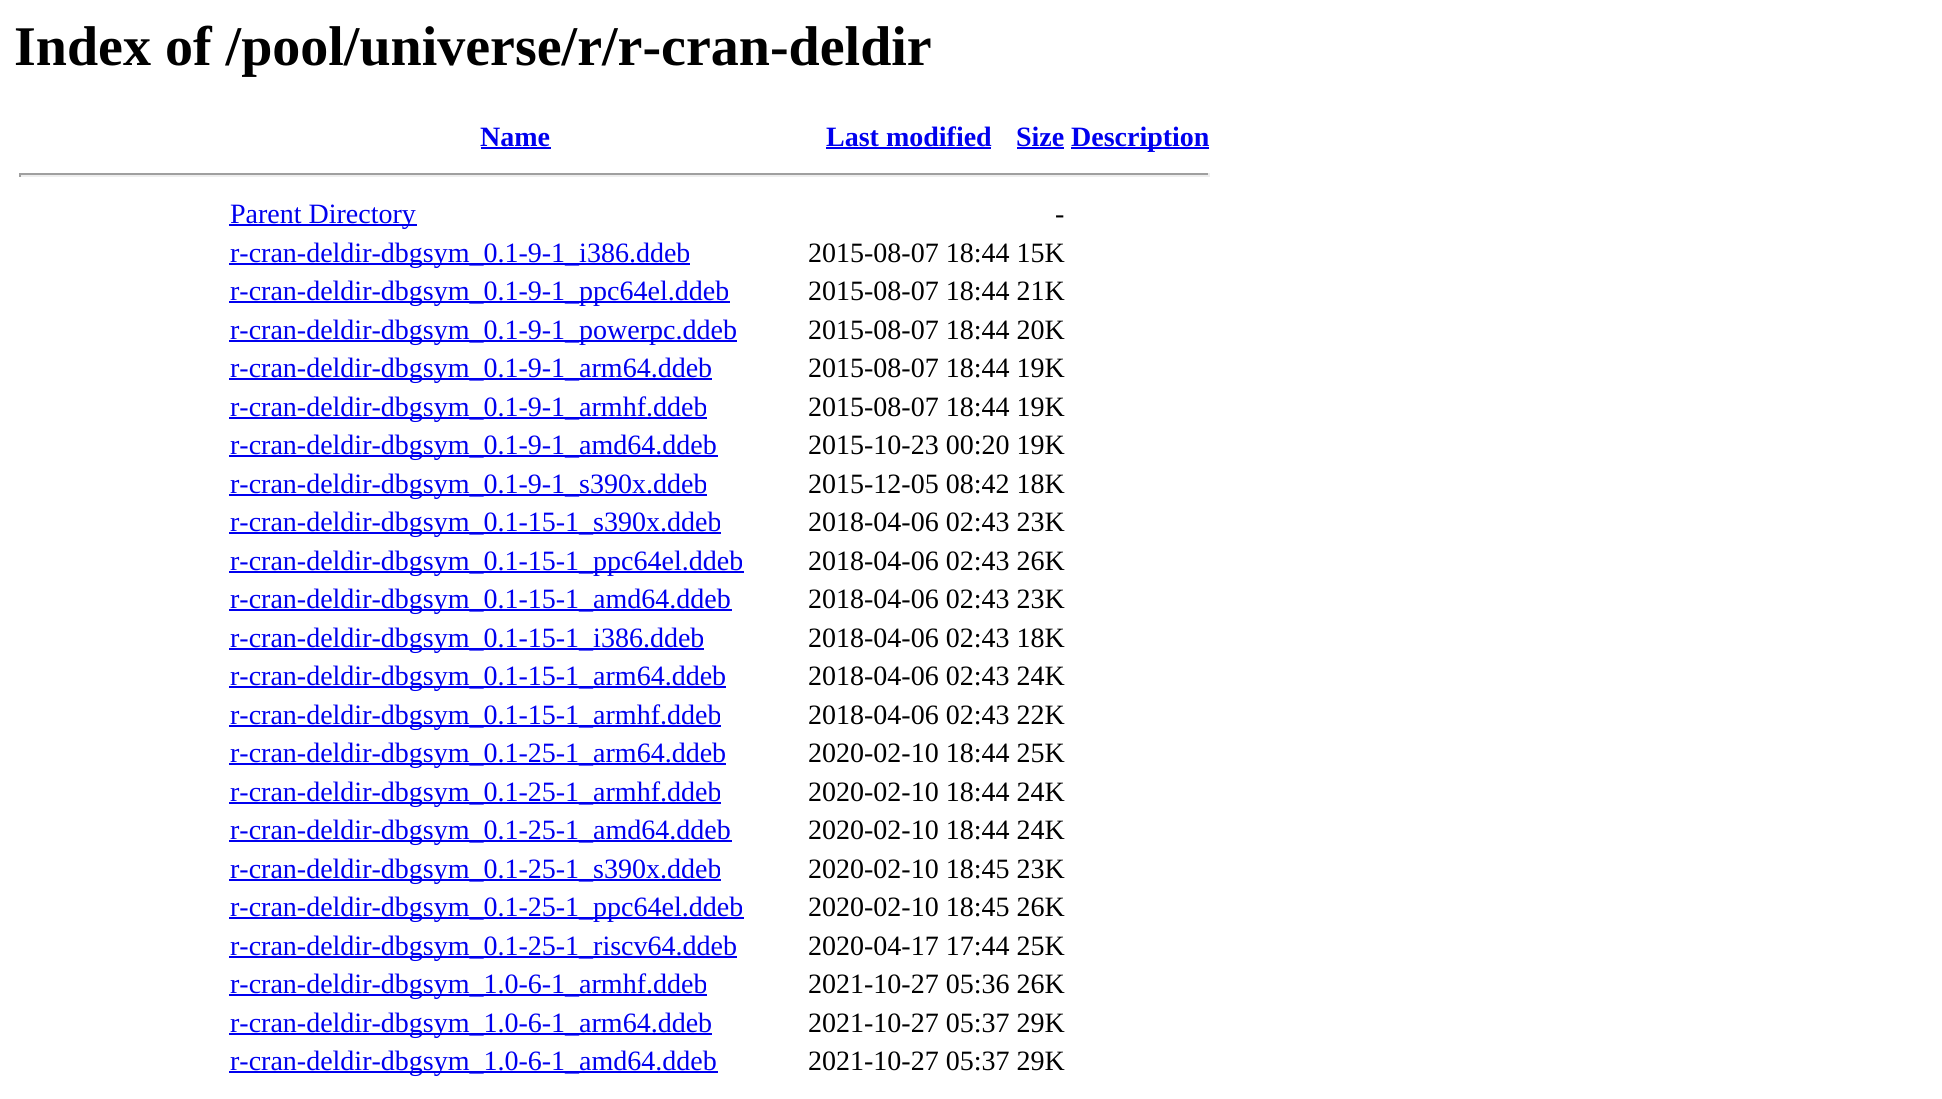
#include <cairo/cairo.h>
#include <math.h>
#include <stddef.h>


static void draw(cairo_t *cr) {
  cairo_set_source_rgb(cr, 1, 1, 1);
  cairo_paint(cr);
  cairo_set_source_rgb(cr, 0, 0, 238 / 255.0);
  cairo_rectangle(cr, 481, 147, 70, 2);
  cairo_fill(cr);
  cairo_rectangle(cr, 826, 147, 165, 2);
  cairo_fill(cr);
  cairo_rectangle(cr, 1017, 147, 47, 2);
  cairo_fill(cr);
  cairo_rectangle(cr, 1071, 147, 138, 2);
  cairo_fill(cr);
  cairo_set_source_rgb(cr, 159 / 255.0, 159 / 255.0, 159 / 255.0);
  cairo_rectangle(cr, 19, 173, 1190, 2);
  cairo_fill(cr);
  cairo_set_source_rgb(cr, 238 / 255.0, 238 / 255.0, 238 / 255.0);
  cairo_rectangle(cr, 1208, 173, 2, 4);
  cairo_fill(cr);
  cairo_rectangle(cr, 19, 175, 1190, 2);
  cairo_fill(cr);
  cairo_set_source_rgb(cr, 159 / 255.0, 159 / 255.0, 159 / 255.0);
  cairo_rectangle(cr, 19, 173, 2, 4);
  cairo_fill(cr);
  cairo_set_source_rgb(cr, 0, 0, 238 / 255.0);
  cairo_rectangle(cr, 229, 224, 188, 2);
  cairo_fill(cr);
  cairo_rectangle(cr, 229, 263, 461, 2);
  cairo_fill(cr);
  cairo_rectangle(cr, 229, 301, 501, 2);
  cairo_fill(cr);
  cairo_rectangle(cr, 229, 340, 508, 2);
  cairo_fill(cr);
  cairo_rectangle(cr, 229, 378, 483, 2);
  cairo_fill(cr);
  cairo_rectangle(cr, 229, 417, 478, 2);
  cairo_fill(cr);
  cairo_rectangle(cr, 229, 455, 489, 2);
  cairo_fill(cr);
  cairo_rectangle(cr, 229, 494, 478, 2);
  cairo_fill(cr);
  cairo_rectangle(cr, 229, 532, 492, 2);
  cairo_fill(cr);
  cairo_rectangle(cr, 229, 571, 515, 2);
  cairo_fill(cr);
  cairo_rectangle(cr, 229, 609, 503, 2);
  cairo_fill(cr);
  cairo_rectangle(cr, 229, 648, 475, 2);
  cairo_fill(cr);
  cairo_rectangle(cr, 229, 686, 497, 2);
  cairo_fill(cr);
  cairo_rectangle(cr, 229, 725, 492, 2);
  cairo_fill(cr);
  cairo_rectangle(cr, 229, 763, 497, 2);
  cairo_fill(cr);
  cairo_rectangle(cr, 229, 802, 492, 2);
  cairo_fill(cr);
  cairo_rectangle(cr, 229, 840, 503, 2);
  cairo_fill(cr);
  cairo_rectangle(cr, 229, 879, 492, 2);
  cairo_fill(cr);
  cairo_rectangle(cr, 229, 917, 515, 2);
  cairo_fill(cr);
  cairo_rectangle(cr, 229, 956, 508, 2);
  cairo_fill(cr);
  cairo_rectangle(cr, 229, 994, 478, 2);
  cairo_fill(cr);
  cairo_rectangle(cr, 229, 1033, 483, 2);
  cairo_fill(cr);
  cairo_rectangle(cr, 229, 1071, 489, 2);
  cairo_fill(cr);
  cairo_select_font_face(cr, "Liberation Serif", CAIRO_FONT_SLANT_NORMAL, CAIRO_FONT_WEIGHT_BOLD);
  cairo_set_font_size(cr, 56);
  cairo_set_source_rgb(cr, 0, 0, 0);
  cairo_move_to(cr, 14, 65);
  cairo_show_text(cr, "Index of /pool/universe/r/r-cran-deldir");
  cairo_set_font_size(cr, 28);
  cairo_set_source_rgb(cr, 0, 0, 238 / 255.0);
  cairo_move_to(cr, 480, 146);
  cairo_show_text(cr, "Name");
  cairo_move_to(cr, 826, 146);
  cairo_show_text(cr, "Last modified");
  cairo_move_to(cr, 1016, 146);
  cairo_show_text(cr, "Size");
  cairo_move_to(cr, 1071, 146);
  cairo_show_text(cr, "Description");
  cairo_select_font_face(cr, "Liberation Serif", CAIRO_FONT_SLANT_NORMAL, CAIRO_FONT_WEIGHT_NORMAL);
  cairo_move_to(cr, 230, 223);
  cairo_show_text(cr, "Parent Directory");
  cairo_set_source_rgb(cr, 0, 0, 0);
  cairo_move_to(cr, 1055, 223);
  cairo_show_text(cr, "-");
  cairo_set_source_rgb(cr, 0, 0, 238 / 255.0);
  cairo_move_to(cr, 230, 262);
  cairo_show_text(cr, "r-cran-deldir-dbgsym_0.1-9-1_i386.ddeb");
  cairo_set_source_rgb(cr, 0, 0, 0);
  cairo_move_to(cr, 808, 262);
  cairo_show_text(cr, "2015-08-07 18:44 15K");
  cairo_set_source_rgb(cr, 0, 0, 238 / 255.0);
  cairo_move_to(cr, 230, 300);
  cairo_show_text(cr, "r-cran-deldir-dbgsym_0.1-9-1_ppc64el.ddeb");
  cairo_set_source_rgb(cr, 0, 0, 0);
  cairo_move_to(cr, 808, 300);
  cairo_show_text(cr, "2015-08-07 18:44 21K");
  cairo_set_source_rgb(cr, 0, 0, 238 / 255.0);
  cairo_move_to(cr, 230, 339);
  cairo_show_text(cr, "r-cran-deldir-dbgsym_0.1-9-1_powerpc.ddeb");
  cairo_set_source_rgb(cr, 0, 0, 0);
  cairo_move_to(cr, 808, 339);
  cairo_show_text(cr, "2015-08-07 18:44 20K");
  cairo_set_source_rgb(cr, 0, 0, 238 / 255.0);
  cairo_move_to(cr, 230, 377);
  cairo_show_text(cr, "r-cran-deldir-dbgsym_0.1-9-1_arm64.ddeb");
  cairo_set_source_rgb(cr, 0, 0, 0);
  cairo_move_to(cr, 808, 377);
  cairo_show_text(cr, "2015-08-07 18:44 19K");
  cairo_set_source_rgb(cr, 0, 0, 238 / 255.0);
  cairo_move_to(cr, 230, 416);
  cairo_show_text(cr, "r-cran-deldir-dbgsym_0.1-9-1_armhf.ddeb");
  cairo_set_source_rgb(cr, 0, 0, 0);
  cairo_move_to(cr, 808, 416);
  cairo_show_text(cr, "2015-08-07 18:44 19K");
  cairo_set_source_rgb(cr, 0, 0, 238 / 255.0);
  cairo_move_to(cr, 230, 454);
  cairo_show_text(cr, "r-cran-deldir-dbgsym_0.1-9-1_amd64.ddeb");
  cairo_set_source_rgb(cr, 0, 0, 0);
  cairo_move_to(cr, 808, 454);
  cairo_show_text(cr, "2015-10-23 00:20 19K");
  cairo_set_source_rgb(cr, 0, 0, 238 / 255.0);
  cairo_move_to(cr, 230, 493);
  cairo_show_text(cr, "r-cran-deldir-dbgsym_0.1-9-1_s390x.ddeb");
  cairo_set_source_rgb(cr, 0, 0, 0);
  cairo_move_to(cr, 808, 493);
  cairo_show_text(cr, "2015-12-05 08:42 18K");
  cairo_set_source_rgb(cr, 0, 0, 238 / 255.0);
  cairo_move_to(cr, 230, 531);
  cairo_show_text(cr, "r-cran-deldir-dbgsym_0.1-15-1_s390x.ddeb");
  cairo_set_source_rgb(cr, 0, 0, 0);
  cairo_move_to(cr, 808, 531);
  cairo_show_text(cr, "2018-04-06 02:43 23K");
  cairo_set_source_rgb(cr, 0, 0, 238 / 255.0);
  cairo_move_to(cr, 230, 570);
  cairo_show_text(cr, "r-cran-deldir-dbgsym_0.1-15-1_ppc64el.ddeb");
  cairo_set_source_rgb(cr, 0, 0, 0);
  cairo_move_to(cr, 808, 570);
  cairo_show_text(cr, "2018-04-06 02:43 26K");
  cairo_set_source_rgb(cr, 0, 0, 238 / 255.0);
  cairo_move_to(cr, 230, 608);
  cairo_show_text(cr, "r-cran-deldir-dbgsym_0.1-15-1_amd64.ddeb");
  cairo_set_source_rgb(cr, 0, 0, 0);
  cairo_move_to(cr, 808, 608);
  cairo_show_text(cr, "2018-04-06 02:43 23K");
  cairo_set_source_rgb(cr, 0, 0, 238 / 255.0);
  cairo_move_to(cr, 230, 647);
  cairo_show_text(cr, "r-cran-deldir-dbgsym_0.1-15-1_i386.ddeb");
  cairo_set_source_rgb(cr, 0, 0, 0);
  cairo_move_to(cr, 808, 647);
  cairo_show_text(cr, "2018-04-06 02:43 18K");
  cairo_set_source_rgb(cr, 0, 0, 238 / 255.0);
  cairo_move_to(cr, 230, 685);
  cairo_show_text(cr, "r-cran-deldir-dbgsym_0.1-15-1_arm64.ddeb");
  cairo_set_source_rgb(cr, 0, 0, 0);
  cairo_move_to(cr, 808, 685);
  cairo_show_text(cr, "2018-04-06 02:43 24K");
  cairo_set_source_rgb(cr, 0, 0, 238 / 255.0);
  cairo_move_to(cr, 230, 724);
  cairo_show_text(cr, "r-cran-deldir-dbgsym_0.1-15-1_armhf.ddeb");
  cairo_set_source_rgb(cr, 0, 0, 0);
  cairo_move_to(cr, 808, 724);
  cairo_show_text(cr, "2018-04-06 02:43 22K");
  cairo_set_source_rgb(cr, 0, 0, 238 / 255.0);
  cairo_move_to(cr, 230, 762);
  cairo_show_text(cr, "r-cran-deldir-dbgsym_0.1-25-1_arm64.ddeb");
  cairo_set_source_rgb(cr, 0, 0, 0);
  cairo_move_to(cr, 808, 762);
  cairo_show_text(cr, "2020-02-10 18:44 25K");
  cairo_set_source_rgb(cr, 0, 0, 238 / 255.0);
  cairo_move_to(cr, 230, 801);
  cairo_show_text(cr, "r-cran-deldir-dbgsym_0.1-25-1_armhf.ddeb");
  cairo_set_source_rgb(cr, 0, 0, 0);
  cairo_move_to(cr, 808, 801);
  cairo_show_text(cr, "2020-02-10 18:44 24K");
  cairo_set_source_rgb(cr, 0, 0, 238 / 255.0);
  cairo_move_to(cr, 230, 839);
  cairo_show_text(cr, "r-cran-deldir-dbgsym_0.1-25-1_amd64.ddeb");
  cairo_set_source_rgb(cr, 0, 0, 0);
  cairo_move_to(cr, 808, 839);
  cairo_show_text(cr, "2020-02-10 18:44 24K");
  cairo_set_source_rgb(cr, 0, 0, 238 / 255.0);
  cairo_move_to(cr, 230, 878);
  cairo_show_text(cr, "r-cran-deldir-dbgsym_0.1-25-1_s390x.ddeb");
  cairo_set_source_rgb(cr, 0, 0, 0);
  cairo_move_to(cr, 808, 878);
  cairo_show_text(cr, "2020-02-10 18:45 23K");
  cairo_set_source_rgb(cr, 0, 0, 238 / 255.0);
  cairo_move_to(cr, 230, 916);
  cairo_show_text(cr, "r-cran-deldir-dbgsym_0.1-25-1_ppc64el.ddeb");
  cairo_set_source_rgb(cr, 0, 0, 0);
  cairo_move_to(cr, 808, 916);
  cairo_show_text(cr, "2020-02-10 18:45 26K");
  cairo_set_source_rgb(cr, 0, 0, 238 / 255.0);
  cairo_move_to(cr, 230, 955);
  cairo_show_text(cr, "r-cran-deldir-dbgsym_0.1-25-1_riscv64.ddeb");
  cairo_set_source_rgb(cr, 0, 0, 0);
  cairo_move_to(cr, 808, 955);
  cairo_show_text(cr, "2020-04-17 17:44 25K");
  cairo_set_source_rgb(cr, 0, 0, 238 / 255.0);
  cairo_move_to(cr, 230, 993);
  cairo_show_text(cr, "r-cran-deldir-dbgsym_1.0-6-1_armhf.ddeb");
  cairo_set_source_rgb(cr, 0, 0, 0);
  cairo_move_to(cr, 808, 993);
  cairo_show_text(cr, "2021-10-27 05:36 26K");
  cairo_set_source_rgb(cr, 0, 0, 238 / 255.0);
  cairo_move_to(cr, 230, 1032);
  cairo_show_text(cr, "r-cran-deldir-dbgsym_1.0-6-1_arm64.ddeb");
  cairo_set_source_rgb(cr, 0, 0, 0);
  cairo_move_to(cr, 808, 1032);
  cairo_show_text(cr, "2021-10-27 05:37 29K");
  cairo_set_source_rgb(cr, 0, 0, 238 / 255.0);
  cairo_move_to(cr, 230, 1070);
  cairo_show_text(cr, "r-cran-deldir-dbgsym_1.0-6-1_amd64.ddeb");
  cairo_set_source_rgb(cr, 0, 0, 0);
  cairo_move_to(cr, 808, 1070);
  cairo_show_text(cr, "2021-10-27 05:37 29K");
}

int main(void) {
  cairo_surface_t *surface = cairo_image_surface_create(CAIRO_FORMAT_RGB24, 1942, 1099);
  cairo_t *cr = cairo_create(surface);
  cairo_font_options_t *options = cairo_font_options_create();
  cairo_font_options_set_hint_metrics(options, CAIRO_HINT_METRICS_OFF);
  cairo_font_options_set_hint_style(options, CAIRO_HINT_STYLE_NONE);
  cairo_set_font_options(cr, options);
  cairo_set_miter_limit(cr, 4);
  draw(cr);
  cairo_surface_write_to_png(surface, "out.png");
  cairo_font_options_destroy(options);
  cairo_destroy(cr);
  cairo_surface_destroy(surface);
  return 0;
}
